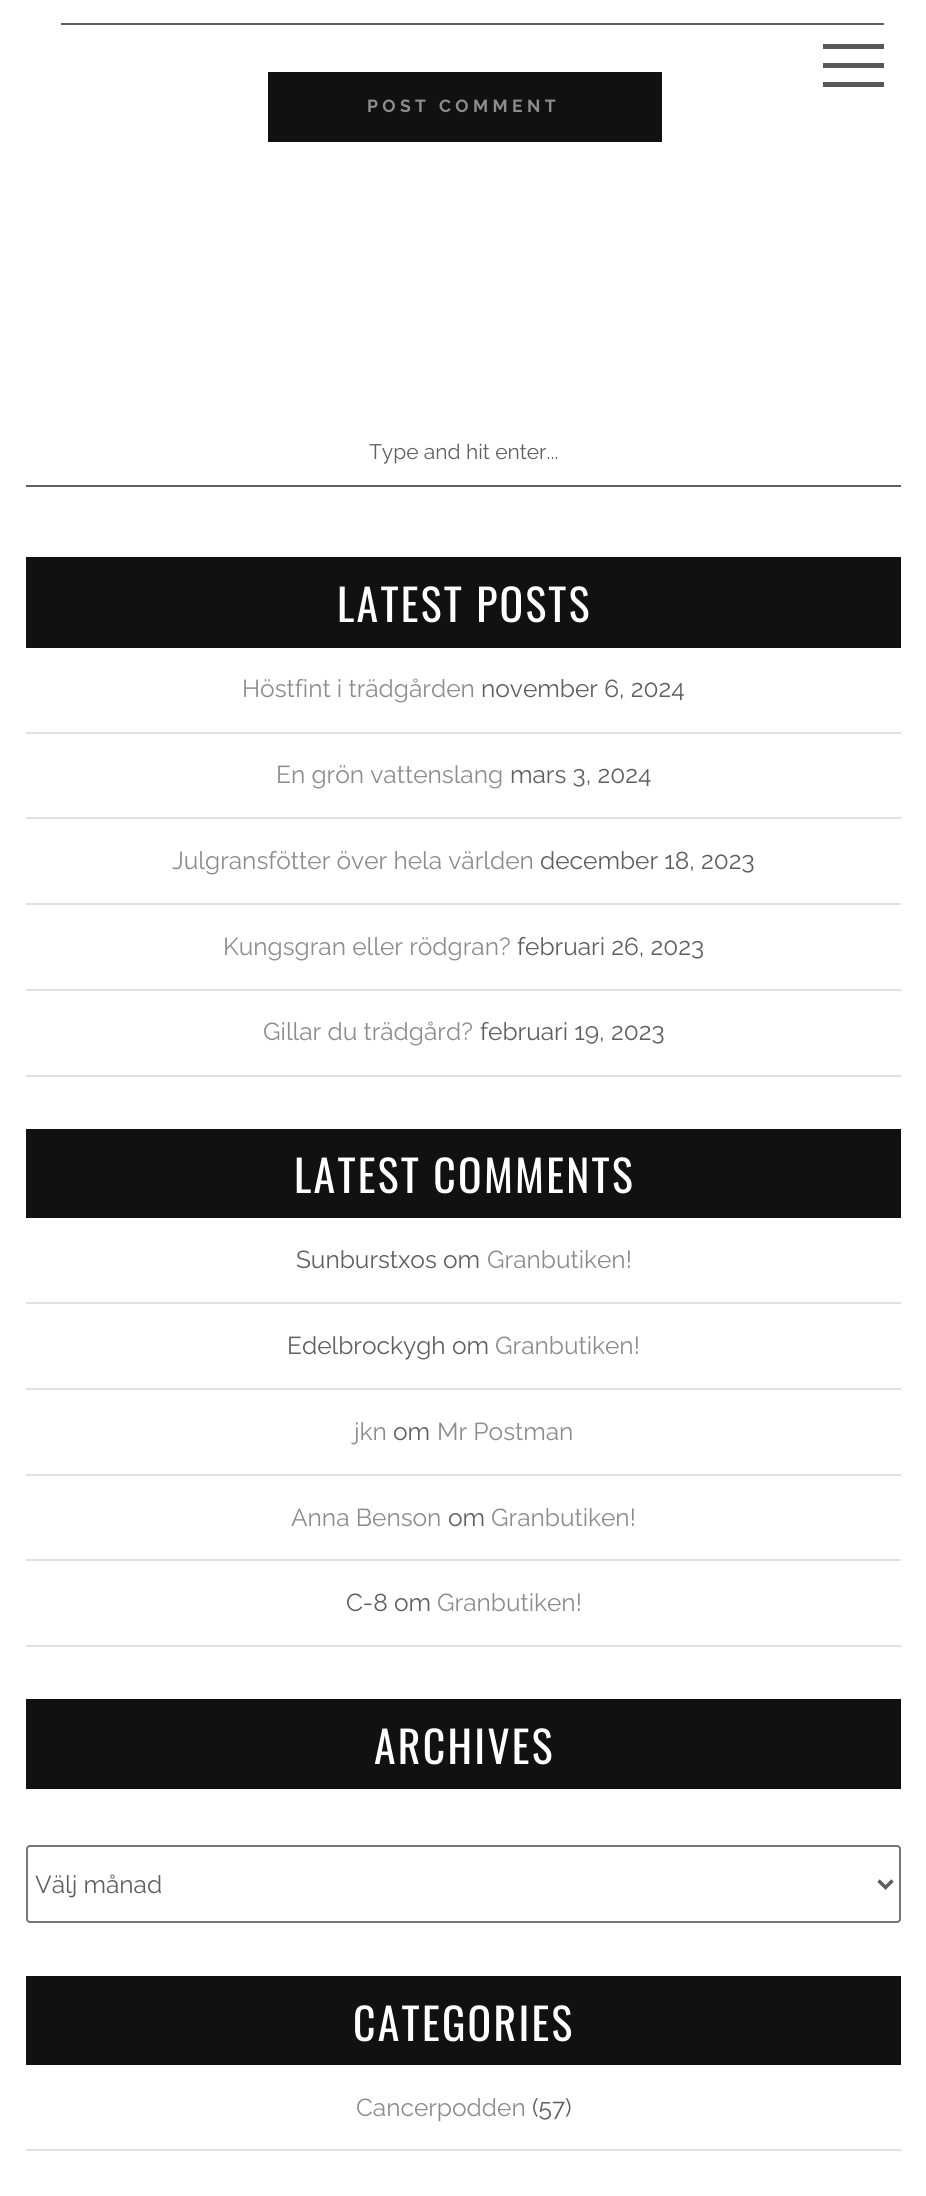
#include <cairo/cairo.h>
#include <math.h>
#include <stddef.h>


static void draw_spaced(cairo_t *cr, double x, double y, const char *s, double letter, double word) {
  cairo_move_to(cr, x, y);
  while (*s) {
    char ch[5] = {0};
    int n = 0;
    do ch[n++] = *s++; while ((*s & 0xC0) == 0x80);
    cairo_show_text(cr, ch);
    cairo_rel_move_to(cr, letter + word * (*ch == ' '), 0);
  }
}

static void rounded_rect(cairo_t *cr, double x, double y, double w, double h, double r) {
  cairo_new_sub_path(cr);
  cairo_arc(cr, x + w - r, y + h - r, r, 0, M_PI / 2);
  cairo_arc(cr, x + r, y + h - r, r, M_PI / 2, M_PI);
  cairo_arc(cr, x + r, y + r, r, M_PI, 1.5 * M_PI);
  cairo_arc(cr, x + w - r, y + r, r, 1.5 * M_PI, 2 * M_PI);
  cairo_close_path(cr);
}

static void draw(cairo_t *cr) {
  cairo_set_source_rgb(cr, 1, 1, 1);
  cairo_paint(cr);
  cairo_set_source_rgb(cr, 88 / 255.0, 88 / 255.0, 88 / 255.0);
  cairo_rectangle(cr, 823, 44, 61, 5);
  cairo_fill(cr);
  cairo_rectangle(cr, 823, 63, 61, 5);
  cairo_fill(cr);
  cairo_rectangle(cr, 823, 82, 61, 5);
  cairo_fill(cr);
  cairo_set_source_rgb(cr, 95 / 255.0, 95 / 255.0, 95 / 255.0);
  cairo_rectangle(cr, 61, 23, 823, 2);
  cairo_fill(cr);
  cairo_set_source_rgb(cr, 17 / 255.0, 17 / 255.0, 17 / 255.0);
  cairo_rectangle(cr, 268, 72, 394, 70);
  cairo_fill(cr);
  cairo_set_source_rgb(cr, 95 / 255.0, 95 / 255.0, 95 / 255.0);
  cairo_rectangle(cr, 26, 485, 875, 2);
  cairo_fill(cr);
  cairo_set_source_rgb(cr, 17 / 255.0, 17 / 255.0, 17 / 255.0);
  cairo_rectangle(cr, 26, 557, 875, 91);
  cairo_fill(cr);
  cairo_set_source_rgb(cr, 224 / 255.0, 224 / 255.0, 224 / 255.0);
  cairo_rectangle(cr, 26, 732, 875, 2);
  cairo_fill(cr);
  cairo_rectangle(cr, 26, 817, 875, 2);
  cairo_fill(cr);
  cairo_rectangle(cr, 26, 903, 875, 2);
  cairo_fill(cr);
  cairo_rectangle(cr, 26, 989, 875, 2);
  cairo_fill(cr);
  cairo_rectangle(cr, 26, 1075, 875, 2);
  cairo_fill(cr);
  cairo_set_source_rgb(cr, 17 / 255.0, 17 / 255.0, 17 / 255.0);
  cairo_rectangle(cr, 26, 1129, 875, 89);
  cairo_fill(cr);
  cairo_set_source_rgb(cr, 224 / 255.0, 224 / 255.0, 224 / 255.0);
  cairo_rectangle(cr, 26, 1302, 875, 2);
  cairo_fill(cr);
  cairo_rectangle(cr, 26, 1388, 875, 2);
  cairo_fill(cr);
  cairo_rectangle(cr, 26, 1474, 875, 2);
  cairo_fill(cr);
  cairo_rectangle(cr, 26, 1559, 875, 2);
  cairo_fill(cr);
  cairo_rectangle(cr, 26, 1645, 875, 2);
  cairo_fill(cr);
  cairo_set_source_rgb(cr, 17 / 255.0, 17 / 255.0, 17 / 255.0);
  cairo_rectangle(cr, 26, 1699, 875, 90);
  cairo_fill(cr);
  rounded_rect(cr, 27, 1846, 873, 76, 3);
  cairo_set_source_rgb(cr, 118 / 255.0, 118 / 255.0, 118 / 255.0);
  cairo_stroke(cr);
  cairo_new_path(cr);
  cairo_move_to(cr, 878.5, 1880.5);
  cairo_line_to(cr, 885.5, 1887.5);
  cairo_line_to(cr, 892.5, 1880.5);
  cairo_set_source_rgb(cr, 95 / 255.0, 95 / 255.0, 95 / 255.0);
  cairo_set_line_width(cr, 3.5);
  cairo_stroke(cr);
  cairo_set_source_rgb(cr, 17 / 255.0, 17 / 255.0, 17 / 255.0);
  cairo_rectangle(cr, 26, 1976, 875, 89);
  cairo_fill(cr);
  cairo_set_source_rgb(cr, 224 / 255.0, 224 / 255.0, 224 / 255.0);
  cairo_rectangle(cr, 26, 2149, 875, 2);
  cairo_fill(cr);
  cairo_select_font_face(cr, "Raleway", CAIRO_FONT_SLANT_NORMAL, CAIRO_FONT_WEIGHT_BOLD);
  cairo_set_font_size(cr, 17.5);
  cairo_set_source_rgb(cr, 140 / 255.0, 140 / 255.0, 140 / 255.0);
  draw_spaced(cr, 367, 112, "POST COMMENT", 4.4, 0);
  cairo_select_font_face(cr, "Raleway", CAIRO_FONT_SLANT_NORMAL, CAIRO_FONT_WEIGHT_NORMAL);
  cairo_set_font_size(cr, 21);
  cairo_set_source_rgb(cr, 95 / 255.0, 95 / 255.0, 95 / 255.0);
  cairo_move_to(cr, 369, 459);
  cairo_show_text(cr, "Type and hit enter...");
  cairo_select_font_face(cr, "Oswald", CAIRO_FONT_SLANT_NORMAL, CAIRO_FONT_WEIGHT_NORMAL);
  cairo_set_font_size(cr, 43.75);
  cairo_set_source_rgb(cr, 1, 1, 1);
  draw_spaced(cr, 337, 622, "LATEST POSTS", 2.25, 0);
  cairo_select_font_face(cr, "Raleway", CAIRO_FONT_SLANT_NORMAL, CAIRO_FONT_WEIGHT_NORMAL);
  cairo_set_font_size(cr, 24.5);
  cairo_set_source_rgb(cr, 140 / 255.0, 140 / 255.0, 140 / 255.0);
  cairo_move_to(cr, 242, 697);
  cairo_show_text(cr, "Höstfint i trädgården");
  cairo_set_source_rgb(cr, 95 / 255.0, 95 / 255.0, 95 / 255.0);
  cairo_move_to(cr, 481, 697);
  cairo_show_text(cr, "november 6, 2024");
  cairo_set_source_rgb(cr, 140 / 255.0, 140 / 255.0, 140 / 255.0);
  cairo_move_to(cr, 276, 783);
  cairo_show_text(cr, "En grön vattenslang");
  cairo_set_source_rgb(cr, 95 / 255.0, 95 / 255.0, 95 / 255.0);
  cairo_move_to(cr, 510, 783);
  cairo_show_text(cr, "mars 3, 2024");
  cairo_set_source_rgb(cr, 140 / 255.0, 140 / 255.0, 140 / 255.0);
  cairo_move_to(cr, 172, 869);
  cairo_show_text(cr, "Julgransfötter över hela världen");
  cairo_set_source_rgb(cr, 95 / 255.0, 95 / 255.0, 95 / 255.0);
  cairo_move_to(cr, 540, 869);
  cairo_show_text(cr, "december 18, 2023");
  cairo_set_source_rgb(cr, 140 / 255.0, 140 / 255.0, 140 / 255.0);
  cairo_move_to(cr, 223, 955);
  cairo_show_text(cr, "Kungsgran eller rödgran?");
  cairo_set_source_rgb(cr, 95 / 255.0, 95 / 255.0, 95 / 255.0);
  cairo_move_to(cr, 517, 955);
  cairo_show_text(cr, "februari 26, 2023");
  cairo_set_source_rgb(cr, 140 / 255.0, 140 / 255.0, 140 / 255.0);
  cairo_move_to(cr, 263, 1040);
  cairo_show_text(cr, "Gillar du trädgård?");
  cairo_set_source_rgb(cr, 95 / 255.0, 95 / 255.0, 95 / 255.0);
  cairo_move_to(cr, 480, 1040);
  cairo_show_text(cr, "februari 19, 2023");
  cairo_select_font_face(cr, "Oswald", CAIRO_FONT_SLANT_NORMAL, CAIRO_FONT_WEIGHT_NORMAL);
  cairo_set_font_size(cr, 43.75);
  cairo_set_source_rgb(cr, 1, 1, 1);
  draw_spaced(cr, 294, 1193, "LATEST COMMENTS", 2.25, 0);
  cairo_select_font_face(cr, "Raleway", CAIRO_FONT_SLANT_NORMAL, CAIRO_FONT_WEIGHT_NORMAL);
  cairo_set_font_size(cr, 24.5);
  cairo_set_source_rgb(cr, 95 / 255.0, 95 / 255.0, 95 / 255.0);
  cairo_move_to(cr, 296, 1268);
  cairo_show_text(cr, "Sunburstxos om");
  cairo_set_source_rgb(cr, 140 / 255.0, 140 / 255.0, 140 / 255.0);
  cairo_move_to(cr, 487, 1268);
  cairo_show_text(cr, "Granbutiken!");
  cairo_set_source_rgb(cr, 95 / 255.0, 95 / 255.0, 95 / 255.0);
  cairo_move_to(cr, 287, 1354);
  cairo_show_text(cr, "Edelbrockygh om");
  cairo_set_source_rgb(cr, 140 / 255.0, 140 / 255.0, 140 / 255.0);
  cairo_move_to(cr, 495, 1354);
  cairo_show_text(cr, "Granbutiken!");
  cairo_move_to(cr, 354, 1440);
  cairo_show_text(cr, "jkn");
  cairo_set_source_rgb(cr, 95 / 255.0, 95 / 255.0, 95 / 255.0);
  cairo_move_to(cr, 393, 1440);
  cairo_show_text(cr, "om");
  cairo_set_source_rgb(cr, 140 / 255.0, 140 / 255.0, 140 / 255.0);
  cairo_move_to(cr, 437, 1440);
  cairo_show_text(cr, "Mr Postman");
  cairo_move_to(cr, 291, 1526);
  cairo_show_text(cr, "Anna Benson");
  cairo_set_source_rgb(cr, 95 / 255.0, 95 / 255.0, 95 / 255.0);
  cairo_move_to(cr, 448, 1526);
  cairo_show_text(cr, "om");
  cairo_set_source_rgb(cr, 140 / 255.0, 140 / 255.0, 140 / 255.0);
  cairo_move_to(cr, 491, 1526);
  cairo_show_text(cr, "Granbutiken!");
  cairo_set_source_rgb(cr, 95 / 255.0, 95 / 255.0, 95 / 255.0);
  cairo_move_to(cr, 346, 1611);
  cairo_show_text(cr, "C-8 om");
  cairo_set_source_rgb(cr, 140 / 255.0, 140 / 255.0, 140 / 255.0);
  cairo_move_to(cr, 437, 1611);
  cairo_show_text(cr, "Granbutiken!");
  cairo_select_font_face(cr, "Oswald", CAIRO_FONT_SLANT_NORMAL, CAIRO_FONT_WEIGHT_NORMAL);
  cairo_set_font_size(cr, 43.75);
  cairo_set_source_rgb(cr, 1, 1, 1);
  draw_spaced(cr, 374, 1764, "ARCHIVES", 2.25, 0);
  cairo_select_font_face(cr, "Raleway", CAIRO_FONT_SLANT_NORMAL, CAIRO_FONT_WEIGHT_NORMAL);
  cairo_set_font_size(cr, 24.5);
  cairo_set_source_rgb(cr, 95 / 255.0, 95 / 255.0, 95 / 255.0);
  cairo_move_to(cr, 35, 1893);
  cairo_show_text(cr, "Välj månad");
  cairo_select_font_face(cr, "Oswald", CAIRO_FONT_SLANT_NORMAL, CAIRO_FONT_WEIGHT_NORMAL);
  cairo_set_font_size(cr, 43.75);
  cairo_set_source_rgb(cr, 1, 1, 1);
  draw_spaced(cr, 353, 2041, "CATEGORIES", 2.25, 0);
  cairo_select_font_face(cr, "Raleway", CAIRO_FONT_SLANT_NORMAL, CAIRO_FONT_WEIGHT_NORMAL);
  cairo_set_font_size(cr, 24.5);
  cairo_set_source_rgb(cr, 140 / 255.0, 140 / 255.0, 140 / 255.0);
  cairo_move_to(cr, 356, 2116);
  cairo_show_text(cr, "Cancerpodden");
  cairo_set_source_rgb(cr, 95 / 255.0, 95 / 255.0, 95 / 255.0);
  cairo_move_to(cr, 532, 2116);
  cairo_show_text(cr, "(57)");
}

int main(void) {
  cairo_surface_t *surface = cairo_image_surface_create(CAIRO_FORMAT_RGB24, 926, 2196);
  cairo_t *cr = cairo_create(surface);
  cairo_font_options_t *options = cairo_font_options_create();
  cairo_font_options_set_hint_metrics(options, CAIRO_HINT_METRICS_OFF);
  cairo_font_options_set_hint_style(options, CAIRO_HINT_STYLE_NONE);
  cairo_set_font_options(cr, options);
  cairo_set_miter_limit(cr, 4);
  draw(cr);
  cairo_surface_write_to_png(surface, "out.png");
  cairo_font_options_destroy(options);
  cairo_destroy(cr);
  cairo_surface_destroy(surface);
  return 0;
}
